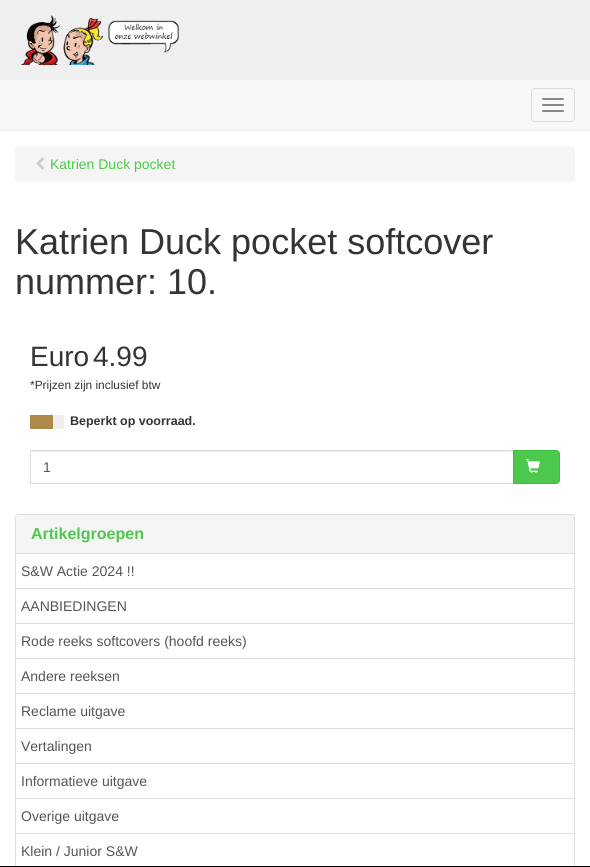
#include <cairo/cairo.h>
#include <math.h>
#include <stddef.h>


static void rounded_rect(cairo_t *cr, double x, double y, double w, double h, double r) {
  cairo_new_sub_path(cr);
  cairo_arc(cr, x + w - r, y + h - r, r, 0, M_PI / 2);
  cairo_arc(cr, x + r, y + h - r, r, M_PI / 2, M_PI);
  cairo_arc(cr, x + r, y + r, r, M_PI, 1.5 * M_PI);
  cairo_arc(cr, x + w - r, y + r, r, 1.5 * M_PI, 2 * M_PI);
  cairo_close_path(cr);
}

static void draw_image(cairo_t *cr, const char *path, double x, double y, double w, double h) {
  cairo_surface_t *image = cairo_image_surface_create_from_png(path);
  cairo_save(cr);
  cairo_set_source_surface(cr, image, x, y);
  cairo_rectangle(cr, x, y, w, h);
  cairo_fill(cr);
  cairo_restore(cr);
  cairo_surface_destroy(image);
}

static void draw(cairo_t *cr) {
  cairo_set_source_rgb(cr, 1, 1, 1);
  cairo_paint(cr);
  cairo_set_source_rgb(cr, 239 / 255.0, 239 / 255.0, 239 / 255.0);
  cairo_rectangle(cr, 0, 0, 590, 80);
  cairo_fill(cr);
  draw_image(cr, "images/1.png", 20, 15, 160, 50);
  cairo_set_source_rgb(cr, 248 / 255.0, 248 / 255.0, 248 / 255.0);
  cairo_rectangle(cr, 0, 80, 590, 50);
  cairo_fill(cr);
  cairo_set_source_rgb(cr, 235 / 255.0, 235 / 255.0, 235 / 255.0);
  cairo_rectangle(cr, 0, 130, 590, 1);
  cairo_fill(cr);
  rounded_rect(cr, 531.5, 88.5, 43, 33, 3.5);
  cairo_set_source_rgb(cr, 221 / 255.0, 221 / 255.0, 221 / 255.0);
  cairo_set_line_width(cr, 1);
  cairo_stroke(cr);
  cairo_set_source_rgb(cr, 136 / 255.0, 136 / 255.0, 136 / 255.0);
  rounded_rect(cr, 542, 98, 22, 2, 1);
  cairo_fill(cr);
  rounded_rect(cr, 542, 104, 22, 2, 1);
  cairo_fill(cr);
  rounded_rect(cr, 542, 110, 22, 2, 1);
  cairo_fill(cr);
  cairo_set_source_rgb(cr, 245 / 255.0, 245 / 255.0, 245 / 255.0);
  rounded_rect(cr, 15, 146, 560, 36, 4);
  cairo_fill(cr);
  draw_image(cr, "images/2.png", 36, 157, 8, 13);
  cairo_set_source_rgb(cr, 174 / 255.0, 137 / 255.0, 74 / 255.0);
  cairo_rectangle(cr, 30, 415, 23, 14);
  cairo_fill(cr);
  cairo_set_source_rgb(cr, 238 / 255.0, 238 / 255.0, 238 / 255.0);
  cairo_rectangle(cr, 53, 415, 11, 14);
  cairo_fill(cr);
  cairo_set_source_rgb(cr, 236 / 255.0, 236 / 255.0, 236 / 255.0);
  cairo_rectangle(cr, 31, 451, 482, 1);
  cairo_fill(cr);
  cairo_rectangle(cr, 30.5, 450.5, 483, 33);
  cairo_set_source_rgb(cr, 221 / 255.0, 221 / 255.0, 221 / 255.0);
  cairo_stroke(cr);
  cairo_set_source_rgb(cr, 76 / 255.0, 201 / 255.0, 76 / 255.0);
  cairo_new_path(cr);
  cairo_move_to(cr, 513.5, 450.5);
  cairo_line_to(cr, 556, 450.5);
  cairo_curve_to(cr, 558, 450.5, 559.5, 452, 559.5, 454);
  cairo_line_to(cr, 559.5, 480);
  cairo_curve_to(cr, 559.5, 482, 558, 483.5, 556, 483.5);
  cairo_line_to(cr, 513.5, 483.5);
  cairo_close_path(cr);
  cairo_fill_preserve(cr);
  cairo_set_source_rgb(cr, 58 / 255.0, 193 / 255.0, 58 / 255.0);
  cairo_stroke(cr);
  draw_image(cr, "images/3.png", 526, 459, 14, 14);
  rounded_rect(cr, 15.5, 514.5, 559, 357, 3.5);
  cairo_set_source_rgb(cr, 221 / 255.0, 221 / 255.0, 221 / 255.0);
  cairo_stroke(cr);
  cairo_set_source_rgb(cr, 245 / 255.0, 245 / 255.0, 245 / 255.0);
  cairo_new_path(cr);
  cairo_move_to(cr, 19, 515);
  cairo_line_to(cr, 571, 515);
  cairo_curve_to(cr, 572.5, 515, 574, 516.5, 574, 518);
  cairo_line_to(cr, 574, 554);
  cairo_line_to(cr, 16, 554);
  cairo_line_to(cr, 16, 518);
  cairo_curve_to(cr, 16, 516.5, 17.5, 515, 19, 515);
  cairo_close_path(cr);
  cairo_fill(cr);
  cairo_set_source_rgb(cr, 221 / 255.0, 221 / 255.0, 221 / 255.0);
  cairo_rectangle(cr, 16, 553, 558, 1);
  cairo_fill(cr);
  cairo_rectangle(cr, 16, 588, 558, 1);
  cairo_fill(cr);
  cairo_rectangle(cr, 16, 623, 558, 1);
  cairo_fill(cr);
  cairo_rectangle(cr, 16, 658, 558, 1);
  cairo_fill(cr);
  cairo_rectangle(cr, 16, 693, 558, 1);
  cairo_fill(cr);
  cairo_rectangle(cr, 16, 728, 558, 1);
  cairo_fill(cr);
  cairo_rectangle(cr, 16, 763, 558, 1);
  cairo_fill(cr);
  cairo_rectangle(cr, 16, 798, 558, 1);
  cairo_fill(cr);
  cairo_rectangle(cr, 16, 833, 558, 1);
  cairo_fill(cr);
  cairo_set_source_rgb(cr, 0, 0, 0);
  cairo_rectangle(cr, 0, 866, 590, 1);
  cairo_fill(cr);
  cairo_select_font_face(cr, "Liberation Sans", CAIRO_FONT_SLANT_NORMAL, CAIRO_FONT_WEIGHT_NORMAL);
  cairo_set_font_size(cr, 14);
  cairo_set_source_rgb(cr, 76 / 255.0, 201 / 255.0, 76 / 255.0);
  cairo_move_to(cr, 50, 169);
  cairo_show_text(cr, "Katrien Duck pocket");
  cairo_set_font_size(cr, 36);
  cairo_set_source_rgb(cr, 52 / 255.0, 52 / 255.0, 52 / 255.0);
  cairo_move_to(cr, 15, 254);
  cairo_show_text(cr, "Katrien Duck pocket softcover");
  cairo_move_to(cr, 15, 294);
  cairo_show_text(cr, "nummer: 10.");
  cairo_set_font_size(cr, 28);
  cairo_move_to(cr, 30, 366);
  cairo_show_text(cr, "Euro");
  cairo_move_to(cr, 93, 366);
  cairo_show_text(cr, "4.99");
  cairo_set_font_size(cr, 11.9);
  cairo_move_to(cr, 30, 389);
  cairo_show_text(cr, "*Prijzen zijn inclusief btw");
  cairo_select_font_face(cr, "Liberation Sans", CAIRO_FONT_SLANT_NORMAL, CAIRO_FONT_WEIGHT_BOLD);
  cairo_set_font_size(cr, 12.5);
  cairo_move_to(cr, 70, 425);
  cairo_show_text(cr, "Beperkt op voorraad.");
  cairo_select_font_face(cr, "Liberation Sans", CAIRO_FONT_SLANT_NORMAL, CAIRO_FONT_WEIGHT_NORMAL);
  cairo_set_font_size(cr, 14);
  cairo_set_source_rgb(cr, 85 / 255.0, 85 / 255.0, 85 / 255.0);
  cairo_move_to(cr, 43, 472);
  cairo_show_text(cr, "1");
  cairo_select_font_face(cr, "Liberation Sans", CAIRO_FONT_SLANT_NORMAL, CAIRO_FONT_WEIGHT_BOLD);
  cairo_set_font_size(cr, 16);
  cairo_set_source_rgb(cr, 76 / 255.0, 201 / 255.0, 76 / 255.0);
  cairo_move_to(cr, 31, 539);
  cairo_show_text(cr, "Artikelgroepen");
  cairo_select_font_face(cr, "Liberation Sans", CAIRO_FONT_SLANT_NORMAL, CAIRO_FONT_WEIGHT_NORMAL);
  cairo_set_font_size(cr, 14);
  cairo_set_source_rgb(cr, 85 / 255.0, 85 / 255.0, 85 / 255.0);
  cairo_move_to(cr, 21, 576);
  cairo_show_text(cr, "S&W Actie 2024 !!");
  cairo_move_to(cr, 21, 611);
  cairo_show_text(cr, "AANBIEDINGEN");
  cairo_move_to(cr, 21, 646);
  cairo_show_text(cr, "Rode reeks softcovers (hoofd reeks)");
  cairo_move_to(cr, 21, 681);
  cairo_show_text(cr, "Andere reeksen");
  cairo_move_to(cr, 21, 716);
  cairo_show_text(cr, "Reclame uitgave");
  cairo_move_to(cr, 21, 751);
  cairo_show_text(cr, "Vertalingen");
  cairo_move_to(cr, 21, 786);
  cairo_show_text(cr, "Informatieve uitgave");
  cairo_move_to(cr, 21, 821);
  cairo_show_text(cr, "Overige uitgave");
  cairo_move_to(cr, 21, 856);
  cairo_show_text(cr, "Klein / Junior S&W");
}

int main(void) {
  cairo_surface_t *surface = cairo_image_surface_create(CAIRO_FORMAT_RGB24, 590, 867);
  cairo_t *cr = cairo_create(surface);
  cairo_font_options_t *options = cairo_font_options_create();
  cairo_font_options_set_hint_metrics(options, CAIRO_HINT_METRICS_OFF);
  cairo_font_options_set_hint_style(options, CAIRO_HINT_STYLE_NONE);
  cairo_set_font_options(cr, options);
  cairo_set_miter_limit(cr, 4);
  draw(cr);
  cairo_surface_write_to_png(surface, "out.png");
  cairo_font_options_destroy(options);
  cairo_destroy(cr);
  cairo_surface_destroy(surface);
  return 0;
}
